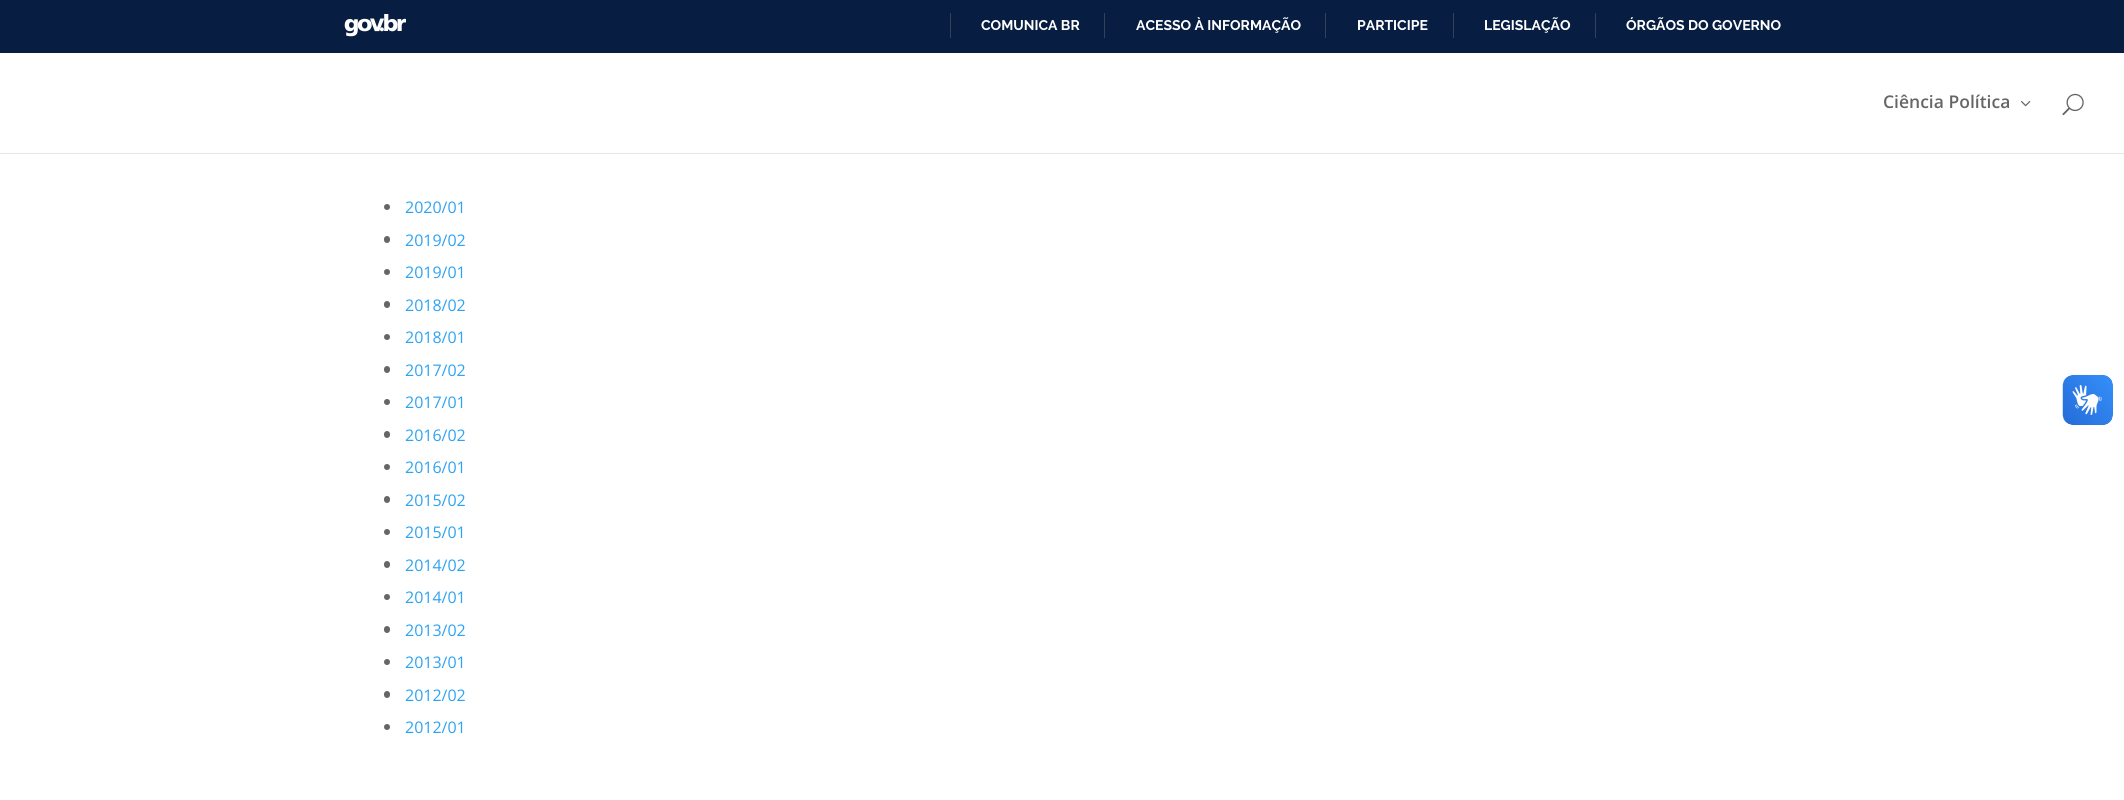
#include <cairo/cairo.h>
#include <math.h>
#include <stddef.h>


static void rounded_rect(cairo_t *cr, double x, double y, double w, double h, double r) {
  cairo_new_sub_path(cr);
  cairo_arc(cr, x + w - r, y + h - r, r, 0, M_PI / 2);
  cairo_arc(cr, x + r, y + h - r, r, M_PI / 2, M_PI);
  cairo_arc(cr, x + r, y + r, r, M_PI, 1.5 * M_PI);
  cairo_arc(cr, x + w - r, y + r, r, 1.5 * M_PI, 2 * M_PI);
  cairo_close_path(cr);
}

static void draw_image(cairo_t *cr, const char *path, double x, double y, double w, double h) {
  cairo_surface_t *image = cairo_image_surface_create_from_png(path);
  cairo_save(cr);
  cairo_set_source_surface(cr, image, x, y);
  cairo_rectangle(cr, x, y, w, h);
  cairo_fill(cr);
  cairo_restore(cr);
  cairo_surface_destroy(image);
}

static void draw(cairo_t *cr) {
  cairo_set_source_rgb(cr, 7 / 255.0, 29 / 255.0, 65 / 255.0);
  cairo_paint(cr);
  draw_image(cr, "images/1.png", 344, 14, 62, 23);
  cairo_set_source_rgb(cr, 50 / 255.0, 66 / 255.0, 91 / 255.0);
  cairo_rectangle(cr, 950, 13, 1, 25);
  cairo_fill(cr);
  cairo_rectangle(cr, 1104, 13, 1, 25);
  cairo_fill(cr);
  cairo_rectangle(cr, 1325, 13, 1, 25);
  cairo_fill(cr);
  cairo_rectangle(cr, 1453, 13, 1, 25);
  cairo_fill(cr);
  cairo_rectangle(cr, 1595, 13, 1, 25);
  cairo_fill(cr);
  cairo_set_source_rgb(cr, 230 / 255.0, 230 / 255.0, 230 / 255.0);
  cairo_rectangle(cr, 0, 153, 2124, 1);
  cairo_fill(cr);
  cairo_set_source_rgb(cr, 1, 1, 1);
  cairo_rectangle(cr, 0, 53, 2124, 100);
  cairo_fill(cr);
  draw_image(cr, "images/2.png", 2021, 101, 10, 6);
  draw_image(cr, "images/3.png", 2062, 93, 22, 23);
  cairo_rectangle(cr, 0, 154, 2124, 646);
  cairo_fill(cr);
  cairo_set_source_rgb(cr, 102 / 255.0, 102 / 255.0, 102 / 255.0);
  cairo_arc(cr, 387, 207, 3, 0, 2 * M_PI);
  cairo_fill(cr);
  rounded_rect(cr, 384, 236, 6, 7, 3);
  cairo_fill(cr);
  cairo_arc(cr, 387, 272, 3, 0, 2 * M_PI);
  cairo_fill(cr);
  rounded_rect(cr, 384, 301, 6, 7, 3);
  cairo_fill(cr);
  cairo_arc(cr, 387, 337, 3, 0, 2 * M_PI);
  cairo_fill(cr);
  rounded_rect(cr, 384, 366, 6, 7, 3);
  cairo_fill(cr);
  cairo_arc(cr, 387, 402, 3, 0, 2 * M_PI);
  cairo_fill(cr);
  rounded_rect(cr, 384, 431, 6, 7, 3);
  cairo_fill(cr);
  cairo_arc(cr, 387, 467, 3, 0, 2 * M_PI);
  cairo_fill(cr);
  rounded_rect(cr, 384, 496, 6, 7, 3);
  cairo_fill(cr);
  cairo_arc(cr, 387, 532, 3, 0, 2 * M_PI);
  cairo_fill(cr);
  rounded_rect(cr, 384, 561, 6, 7, 3);
  cairo_fill(cr);
  cairo_arc(cr, 387, 597, 3, 0, 2 * M_PI);
  cairo_fill(cr);
  rounded_rect(cr, 384, 626, 6, 7, 3);
  cairo_fill(cr);
  cairo_arc(cr, 387, 662, 3, 0, 2 * M_PI);
  cairo_fill(cr);
  rounded_rect(cr, 384, 691, 6, 7, 3);
  cairo_fill(cr);
  cairo_arc(cr, 387, 727, 3, 0, 2 * M_PI);
  cairo_fill(cr);
  draw_image(cr, "images/4.png", 2062, 375, 51, 50);
  draw_image(cr, "images/5.png", 2063, 375, 50, 50);
  cairo_select_font_face(cr, "Raleway", CAIRO_FONT_SLANT_NORMAL, CAIRO_FONT_WEIGHT_BOLD);
  cairo_set_font_size(cr, 14);
  cairo_set_source_rgb(cr, 1, 1, 1);
  cairo_move_to(cr, 981, 30);
  cairo_show_text(cr, "COMUNICA BR");
  cairo_move_to(cr, 1136, 30);
  cairo_show_text(cr, "ACESSO À INFORMAÇÃO");
  cairo_move_to(cr, 1357, 30);
  cairo_show_text(cr, "PARTICIPE");
  cairo_move_to(cr, 1484, 30);
  cairo_show_text(cr, "LEGISLAÇÃO");
  cairo_move_to(cr, 1626, 30);
  cairo_show_text(cr, "ÓRGÃOS DO GOVERNO");
  cairo_select_font_face(cr, "Open Sans SemiBold", CAIRO_FONT_SLANT_NORMAL, CAIRO_FONT_WEIGHT_NORMAL);
  cairo_set_font_size(cr, 17.5);
  cairo_set_source_rgb(cr, 102 / 255.0, 102 / 255.0, 102 / 255.0);
  cairo_move_to(cr, 1883, 108);
  cairo_show_text(cr, "Ciência Política");
  cairo_select_font_face(cr, "Open Sans", CAIRO_FONT_SLANT_NORMAL, CAIRO_FONT_WEIGHT_NORMAL);
  cairo_set_font_size(cr, 16);
  cairo_set_source_rgb(cr, 46 / 255.0, 163 / 255.0, 242 / 255.0);
  cairo_move_to(cr, 405, 213);
  cairo_show_text(cr, "2020/01");
  cairo_move_to(cr, 405, 246);
  cairo_show_text(cr, "2019/02");
  cairo_move_to(cr, 405, 278);
  cairo_show_text(cr, "2019/01");
  cairo_move_to(cr, 405, 311);
  cairo_show_text(cr, "2018/02");
  cairo_move_to(cr, 405, 343);
  cairo_show_text(cr, "2018/01");
  cairo_move_to(cr, 405, 376);
  cairo_show_text(cr, "2017/02");
  cairo_move_to(cr, 405, 408);
  cairo_show_text(cr, "2017/01");
  cairo_move_to(cr, 405, 441);
  cairo_show_text(cr, "2016/02");
  cairo_move_to(cr, 405, 473);
  cairo_show_text(cr, "2016/01");
  cairo_move_to(cr, 405, 506);
  cairo_show_text(cr, "2015/02");
  cairo_move_to(cr, 405, 538);
  cairo_show_text(cr, "2015/01");
  cairo_move_to(cr, 405, 571);
  cairo_show_text(cr, "2014/02");
  cairo_move_to(cr, 405, 603);
  cairo_show_text(cr, "2014/01");
  cairo_move_to(cr, 405, 636);
  cairo_show_text(cr, "2013/02");
  cairo_move_to(cr, 405, 668);
  cairo_show_text(cr, "2013/01");
  cairo_move_to(cr, 405, 701);
  cairo_show_text(cr, "2012/02");
  cairo_move_to(cr, 405, 733);
  cairo_show_text(cr, "2012/01");
}

int main(void) {
  cairo_surface_t *surface = cairo_image_surface_create(CAIRO_FORMAT_RGB24, 2124, 800);
  cairo_t *cr = cairo_create(surface);
  cairo_font_options_t *options = cairo_font_options_create();
  cairo_font_options_set_hint_metrics(options, CAIRO_HINT_METRICS_OFF);
  cairo_font_options_set_hint_style(options, CAIRO_HINT_STYLE_NONE);
  cairo_set_font_options(cr, options);
  cairo_set_miter_limit(cr, 4);
  draw(cr);
  cairo_surface_write_to_png(surface, "out.png");
  cairo_font_options_destroy(options);
  cairo_destroy(cr);
  cairo_surface_destroy(surface);
  return 0;
}
